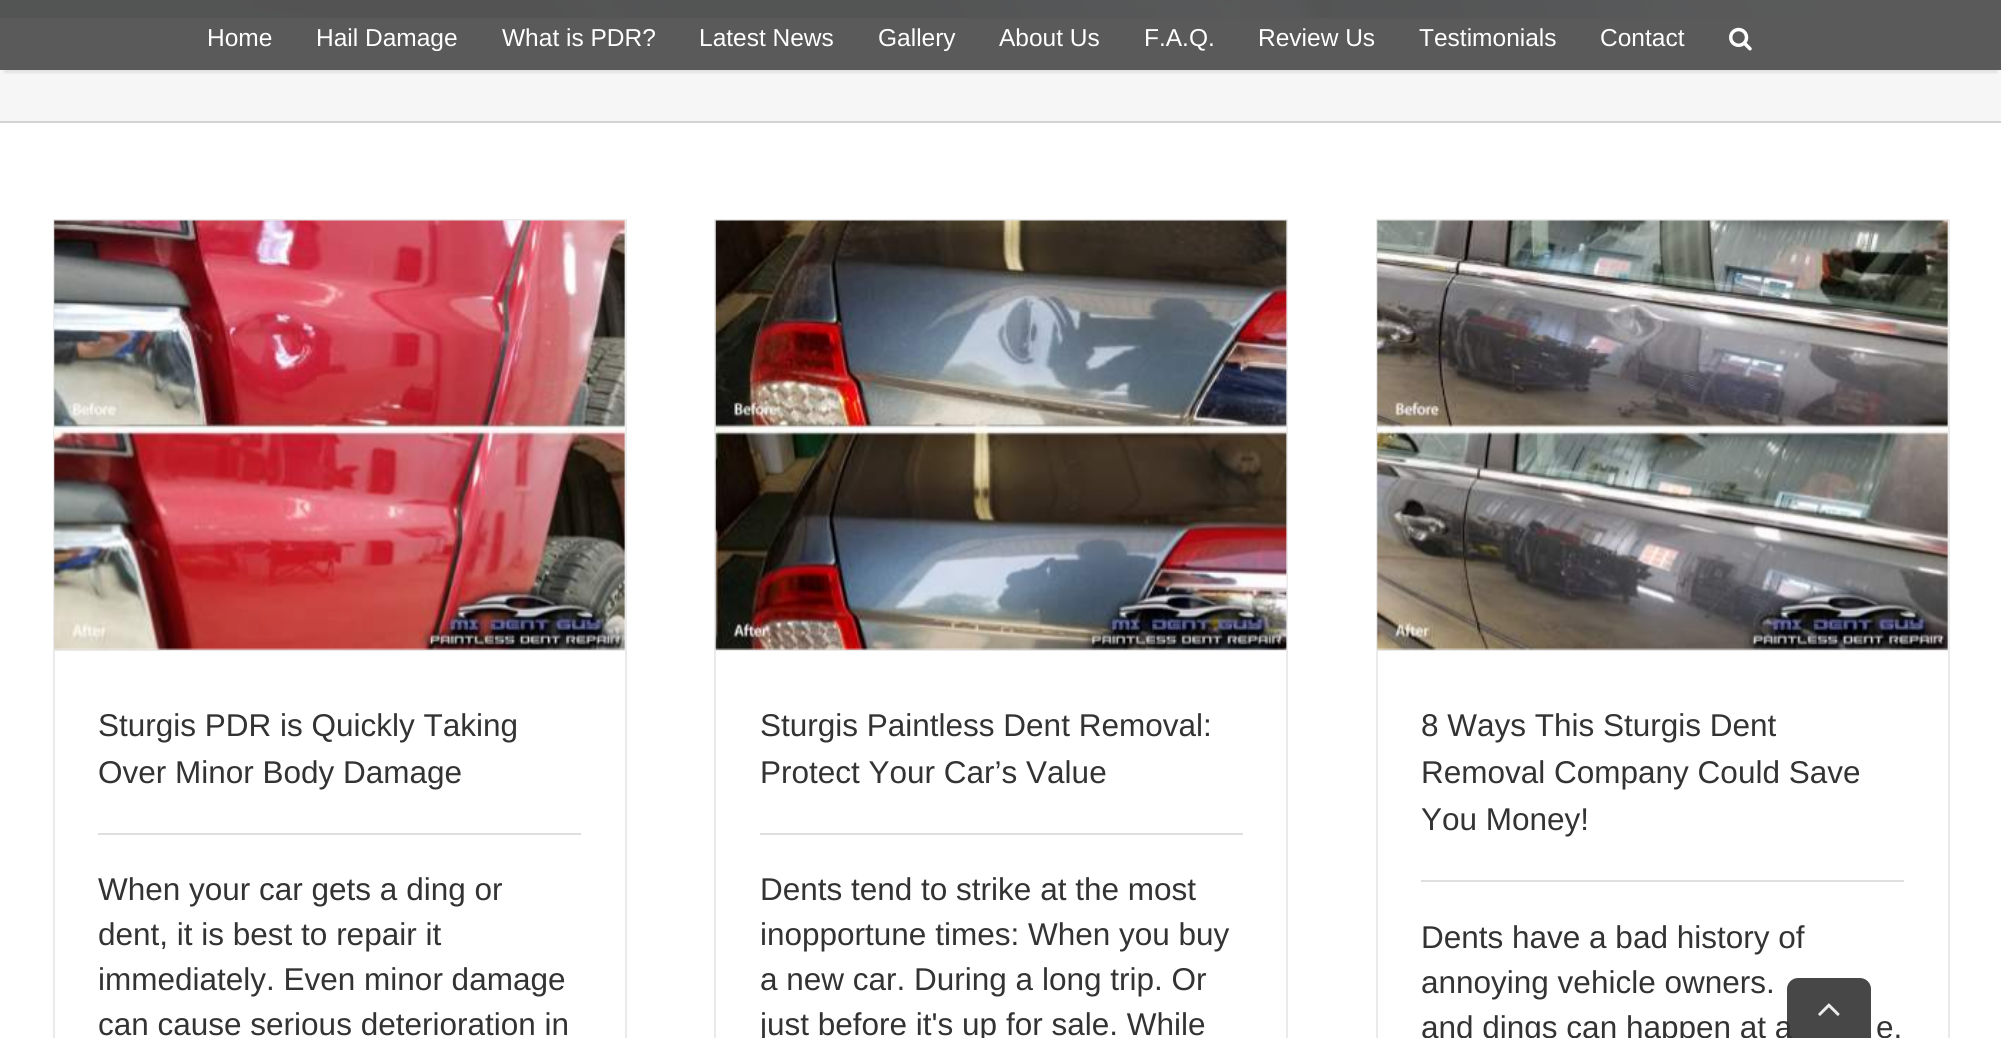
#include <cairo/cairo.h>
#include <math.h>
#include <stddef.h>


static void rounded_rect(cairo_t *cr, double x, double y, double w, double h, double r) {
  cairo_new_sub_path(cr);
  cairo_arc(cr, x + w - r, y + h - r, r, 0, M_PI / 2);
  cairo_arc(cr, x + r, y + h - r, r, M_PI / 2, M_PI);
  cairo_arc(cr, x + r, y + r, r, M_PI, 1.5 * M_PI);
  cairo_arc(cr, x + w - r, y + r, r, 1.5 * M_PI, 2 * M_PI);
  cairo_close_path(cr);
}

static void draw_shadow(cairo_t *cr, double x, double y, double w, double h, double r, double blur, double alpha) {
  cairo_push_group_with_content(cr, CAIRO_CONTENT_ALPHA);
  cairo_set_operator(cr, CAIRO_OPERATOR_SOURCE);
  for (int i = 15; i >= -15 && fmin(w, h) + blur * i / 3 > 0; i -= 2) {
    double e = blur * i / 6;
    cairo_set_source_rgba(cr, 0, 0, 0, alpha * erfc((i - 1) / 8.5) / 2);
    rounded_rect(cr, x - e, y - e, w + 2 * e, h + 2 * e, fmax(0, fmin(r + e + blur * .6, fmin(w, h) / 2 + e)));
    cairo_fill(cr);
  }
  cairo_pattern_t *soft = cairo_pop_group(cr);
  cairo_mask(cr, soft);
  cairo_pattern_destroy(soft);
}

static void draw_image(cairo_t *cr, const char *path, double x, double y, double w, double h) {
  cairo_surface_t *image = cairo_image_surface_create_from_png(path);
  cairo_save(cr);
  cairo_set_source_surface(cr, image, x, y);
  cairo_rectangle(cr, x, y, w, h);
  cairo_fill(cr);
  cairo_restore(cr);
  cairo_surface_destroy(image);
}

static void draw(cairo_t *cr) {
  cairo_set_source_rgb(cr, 1, 1, 1);
  cairo_paint(cr);
  draw_image(cr, "images/1.png", 0, 0, 2001, 18);
  cairo_set_source_rgb(cr, 246 / 255.0, 246 / 255.0, 246 / 255.0);
  cairo_rectangle(cr, 0, 20, 2001, 101);
  cairo_fill(cr);
  cairo_set_source_rgb(cr, 210 / 255.0, 211 / 255.0, 212 / 255.0);
  cairo_rectangle(cr, 0, 18, 2001, 2);
  cairo_fill(cr);
  cairo_rectangle(cr, 0, 121, 2001, 2);
  cairo_fill(cr);
  cairo_save(cr);
  cairo_rectangle(cr, 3, 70, 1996, 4);
  cairo_clip(cr);
  cairo_set_source_rgb(cr, 0, 0, 0);
  draw_shadow(cr, 5, 12, 1992, 60, 0, 2.5, 0.12);
  cairo_restore(cr);
  cairo_set_source_rgba(cr, 86 / 255.0, 86 / 255.0, 86 / 255.0, 0.97);
  cairo_rectangle(cr, 0, 0, 2001, 70);
  cairo_fill(cr);
  draw_image(cr, "images/2.png", 1729, 27, 23, 24);
  cairo_set_source_rgb(cr, 235 / 255.0, 234 / 255.0, 234 / 255.0);
  cairo_rectangle(cr, 53, 219, 574, 2);
  cairo_fill(cr);
  cairo_rectangle(cr, 625, 219, 2, 819);
  cairo_fill(cr);
  cairo_rectangle(cr, 53, 219, 2, 819);
  cairo_fill(cr);
  cairo_rectangle(cr, 54, 649, 571, 2);
  cairo_fill(cr);
  draw_image(cr, "images/3.png", 54, 220, 571, 430);
  cairo_set_source_rgb(cr, 224 / 255.0, 222 / 255.0, 222 / 255.0);
  cairo_rectangle(cr, 98, 833, 483, 2);
  cairo_fill(cr);
  cairo_set_source_rgb(cr, 235 / 255.0, 234 / 255.0, 234 / 255.0);
  cairo_rectangle(cr, 714, 219, 574, 2);
  cairo_fill(cr);
  cairo_rectangle(cr, 1286, 219, 2, 819);
  cairo_fill(cr);
  cairo_rectangle(cr, 714, 219, 2, 819);
  cairo_fill(cr);
  cairo_rectangle(cr, 716, 649, 570, 2);
  cairo_fill(cr);
  draw_image(cr, "images/4.png", 715, 220, 572, 430);
  cairo_set_source_rgb(cr, 224 / 255.0, 222 / 255.0, 222 / 255.0);
  cairo_rectangle(cr, 760, 833, 483, 2);
  cairo_fill(cr);
  cairo_set_source_rgb(cr, 235 / 255.0, 234 / 255.0, 234 / 255.0);
  cairo_rectangle(cr, 1376, 219, 574, 2);
  cairo_fill(cr);
  cairo_rectangle(cr, 1948, 219, 2, 819);
  cairo_fill(cr);
  cairo_rectangle(cr, 1376, 219, 2, 819);
  cairo_fill(cr);
  cairo_rectangle(cr, 1377, 649, 571, 2);
  cairo_fill(cr);
  draw_image(cr, "images/5.png", 1377, 220, 571, 430);
  cairo_set_source_rgb(cr, 224 / 255.0, 222 / 255.0, 222 / 255.0);
  cairo_rectangle(cr, 1421, 880, 483, 2);
  cairo_fill(cr);
  cairo_select_font_face(cr, "Liberation Sans", CAIRO_FONT_SLANT_NORMAL, CAIRO_FONT_WEIGHT_NORMAL);
  cairo_set_font_size(cr, 24.5);
  cairo_set_source_rgb(cr, 1, 1, 1);
  cairo_move_to(cr, 207, 46);
  cairo_show_text(cr, "Home");
  cairo_move_to(cr, 316, 46);
  cairo_show_text(cr, "Hail Damage");
  cairo_move_to(cr, 502, 46);
  cairo_show_text(cr, "What is PDR?");
  cairo_move_to(cr, 699, 46);
  cairo_show_text(cr, "Latest News");
  cairo_move_to(cr, 878, 46);
  cairo_show_text(cr, "Gallery");
  cairo_move_to(cr, 999, 46);
  cairo_show_text(cr, "About Us");
  cairo_move_to(cr, 1144, 46);
  cairo_show_text(cr, "F.A.Q.");
  cairo_move_to(cr, 1258, 46);
  cairo_show_text(cr, "Review Us");
  cairo_move_to(cr, 1419, 46);
  cairo_show_text(cr, "Testimonials");
  cairo_move_to(cr, 1600, 46);
  cairo_show_text(cr, "Contact");
  cairo_set_font_size(cr, 31.5);
  cairo_set_source_rgb(cr, 51 / 255.0, 51 / 255.0, 51 / 255.0);
  cairo_move_to(cr, 98, 736);
  cairo_show_text(cr, "Sturgis PDR is Quickly Taking");
  cairo_move_to(cr, 98, 783);
  cairo_show_text(cr, "Over Minor Body Damage");
  cairo_move_to(cr, 98, 900);
  cairo_show_text(cr, "When your car gets a ding or");
  cairo_move_to(cr, 98, 945);
  cairo_show_text(cr, "dent, it is best to repair it");
  cairo_move_to(cr, 98, 990);
  cairo_show_text(cr, "immediately. Even minor damage");
  cairo_move_to(cr, 98, 1035);
  cairo_show_text(cr, "can cause serious deterioration in");
  cairo_move_to(cr, 760, 736);
  cairo_show_text(cr, "Sturgis Paintless Dent Removal:");
  cairo_move_to(cr, 760, 783);
  cairo_show_text(cr, "Protect Your Car’s Value");
  cairo_move_to(cr, 760, 900);
  cairo_show_text(cr, "Dents tend to strike at the most");
  cairo_move_to(cr, 760, 945);
  cairo_show_text(cr, "inopportune times: When you buy");
  cairo_move_to(cr, 760, 990);
  cairo_show_text(cr, "a new car. During a long trip. Or");
  cairo_move_to(cr, 760, 1035);
  cairo_show_text(cr, "just before it's up for sale. While");
  cairo_move_to(cr, 1421, 736);
  cairo_show_text(cr, "8 Ways This Sturgis Dent");
  cairo_move_to(cr, 1421, 783);
  cairo_show_text(cr, "Removal Company Could Save");
  cairo_move_to(cr, 1421, 830);
  cairo_show_text(cr, "You Money!");
  cairo_move_to(cr, 1421, 948);
  cairo_show_text(cr, "Dents have a bad history of");
  cairo_move_to(cr, 1421, 993);
  cairo_show_text(cr, "annoying vehicle owners.");
  cairo_move_to(cr, 1421, 1038);
  cairo_show_text(cr, "and dings can happen at a");
  cairo_move_to(cr, 1876, 1038);
  cairo_show_text(cr, "e.");
  cairo_set_source_rgba(cr, 51 / 255.0, 51 / 255.0, 51 / 255.0, 0.9);
  cairo_new_path(cr);
  cairo_move_to(cr, 1798, 978);
  cairo_line_to(cr, 1860, 978);
  cairo_curve_to(cr, 1866, 978, 1871, 983, 1871, 989);
  cairo_line_to(cr, 1871, 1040);
  cairo_line_to(cr, 1787, 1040);
  cairo_line_to(cr, 1787, 989);
  cairo_curve_to(cr, 1787, 983, 1792, 978, 1798, 978);
  cairo_close_path(cr);
  cairo_fill(cr);
  draw_image(cr, "images/6.png", 1818, 1003, 22, 13);
}

int main(void) {
  cairo_surface_t *surface = cairo_image_surface_create(CAIRO_FORMAT_RGB24, 2001, 1038);
  cairo_t *cr = cairo_create(surface);
  cairo_font_options_t *options = cairo_font_options_create();
  cairo_font_options_set_hint_metrics(options, CAIRO_HINT_METRICS_OFF);
  cairo_font_options_set_hint_style(options, CAIRO_HINT_STYLE_NONE);
  cairo_set_font_options(cr, options);
  cairo_set_miter_limit(cr, 4);
  draw(cr);
  cairo_surface_write_to_png(surface, "out.png");
  cairo_font_options_destroy(options);
  cairo_destroy(cr);
  cairo_surface_destroy(surface);
  return 0;
}
